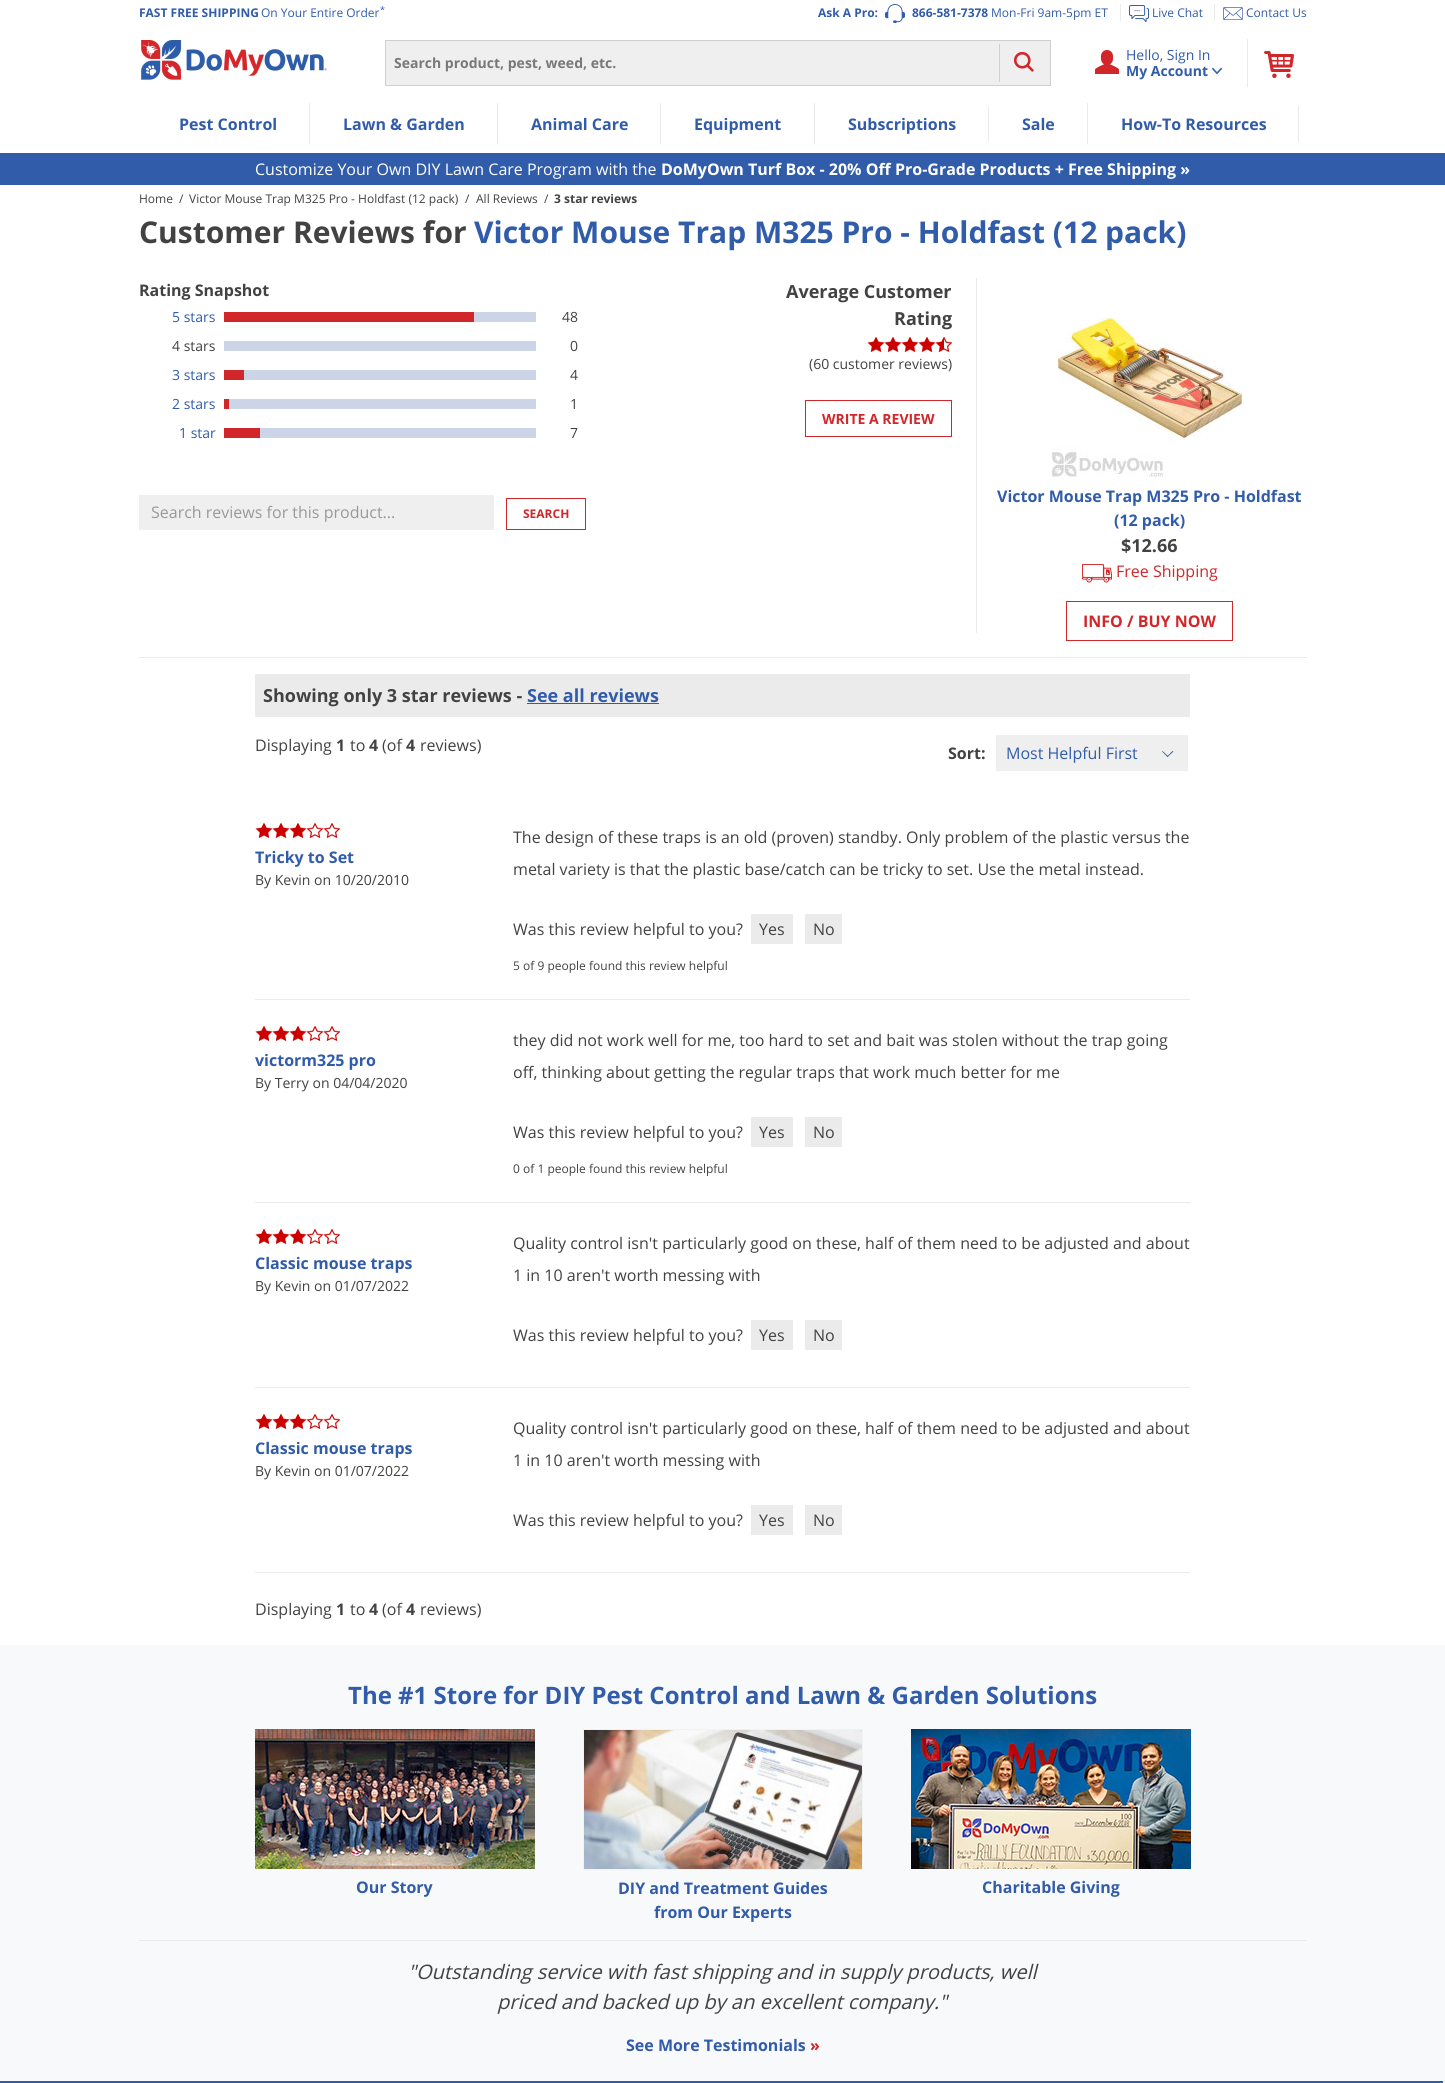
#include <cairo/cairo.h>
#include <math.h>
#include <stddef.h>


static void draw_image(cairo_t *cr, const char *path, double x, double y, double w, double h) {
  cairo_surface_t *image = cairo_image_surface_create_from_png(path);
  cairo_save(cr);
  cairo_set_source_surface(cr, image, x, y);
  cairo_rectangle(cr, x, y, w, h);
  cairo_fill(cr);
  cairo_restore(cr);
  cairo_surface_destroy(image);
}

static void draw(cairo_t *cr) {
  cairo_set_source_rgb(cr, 1, 1, 1);
  cairo_paint(cr);
  draw_image(cr, "images/1.png", 885, 4, 20, 19);
  cairo_set_source_rgb(cr, 235 / 255.0, 235 / 255.0, 235 / 255.0);
  cairo_rectangle(cr, 1120, 4, 1, 17);
  cairo_fill(cr);
  cairo_rectangle(cr, 1214, 4, 1, 17);
  cairo_fill(cr);
  draw_image(cr, "images/2.png", 1129, 5, 20, 17);
  draw_image(cr, "images/3.png", 1223, 7, 20, 13);
  draw_image(cr, "images/4.png", 141, 40, 186, 40);
  cairo_set_source_rgb(cr, 239 / 255.0, 239 / 255.0, 239 / 255.0);
  cairo_rectangle(cr, 385.5, 40.5, 665, 45);
  cairo_fill_preserve(cr);
  cairo_set_source_rgb(cr, 207 / 255.0, 207 / 255.0, 207 / 255.0);
  cairo_set_line_width(cr, 1);
  cairo_stroke(cr);
  cairo_rectangle(cr, 999, 44, 1, 38);
  cairo_fill(cr);
  draw_image(cr, "images/5.png", 1014, 52, 20, 20);
  cairo_set_source_rgb(cr, 235 / 255.0, 235 / 255.0, 235 / 255.0);
  cairo_rectangle(cr, 1247, 39, 1, 48);
  cairo_fill(cr);
  draw_image(cr, "images/6.png", 1095, 50, 24, 24);
  draw_image(cr, "images/7.png", 1212, 67, 10, 8);
  draw_image(cr, "images/8.png", 1264, 51, 30, 27);
  cairo_rectangle(cr, 309, 103, 1, 42);
  cairo_fill(cr);
  cairo_set_source_rgb(cr, 1, 1, 1);
  cairo_rectangle(cr, 309, 144, 1, 1);
  cairo_fill(cr);
  cairo_set_source_rgb(cr, 235 / 255.0, 235 / 255.0, 235 / 255.0);
  cairo_rectangle(cr, 497, 103, 1, 42);
  cairo_fill(cr);
  cairo_set_source_rgb(cr, 1, 1, 1);
  cairo_rectangle(cr, 497, 144, 1, 1);
  cairo_fill(cr);
  cairo_set_source_rgb(cr, 235 / 255.0, 235 / 255.0, 235 / 255.0);
  cairo_rectangle(cr, 660, 103, 1, 42);
  cairo_fill(cr);
  cairo_set_source_rgb(cr, 1, 1, 1);
  cairo_rectangle(cr, 660, 144, 1, 1);
  cairo_fill(cr);
  cairo_set_source_rgb(cr, 235 / 255.0, 235 / 255.0, 235 / 255.0);
  cairo_rectangle(cr, 814, 103, 1, 42);
  cairo_fill(cr);
  cairo_set_source_rgb(cr, 1, 1, 1);
  cairo_rectangle(cr, 814, 144, 1, 1);
  cairo_fill(cr);
  cairo_set_source_rgb(cr, 235 / 255.0, 235 / 255.0, 235 / 255.0);
  cairo_rectangle(cr, 988, 106, 1, 37);
  cairo_fill(cr);
  cairo_set_source_rgb(cr, 1, 1, 1);
  cairo_rectangle(cr, 988, 142, 1, 1);
  cairo_fill(cr);
  cairo_set_source_rgb(cr, 235 / 255.0, 235 / 255.0, 235 / 255.0);
  cairo_rectangle(cr, 1087, 103, 1, 42);
  cairo_fill(cr);
  cairo_set_source_rgb(cr, 1, 1, 1);
  cairo_rectangle(cr, 1087, 144, 1, 1);
  cairo_fill(cr);
  cairo_set_source_rgb(cr, 235 / 255.0, 235 / 255.0, 235 / 255.0);
  cairo_rectangle(cr, 1298, 106, 1, 37);
  cairo_fill(cr);
  cairo_set_source_rgb(cr, 1, 1, 1);
  cairo_rectangle(cr, 1298, 142, 1, 1);
  cairo_fill(cr);
  cairo_set_source_rgb(cr, 49 / 255.0, 92 / 255.0, 170 / 255.0);
  cairo_rectangle(cr, 0, 153, 1445, 32);
  cairo_fill(cr);
  cairo_set_source_rgb(cr, 235 / 255.0, 235 / 255.0, 235 / 255.0);
  cairo_rectangle(cr, 139, 657, 1168, 1);
  cairo_fill(cr);
  cairo_set_source_rgb(cr, 204 / 255.0, 212 / 255.0, 232 / 255.0);
  cairo_rectangle(cr, 474, 312, 62, 10);
  cairo_fill(cr);
  cairo_set_source_rgb(cr, 210 / 255.0, 39 / 255.0, 42 / 255.0);
  cairo_rectangle(cr, 224, 312, 250, 10);
  cairo_fill(cr);
  cairo_set_source_rgb(cr, 204 / 255.0, 212 / 255.0, 232 / 255.0);
  cairo_rectangle(cr, 224, 341, 312, 10);
  cairo_fill(cr);
  cairo_rectangle(cr, 244, 370, 292, 10);
  cairo_fill(cr);
  cairo_set_source_rgb(cr, 210 / 255.0, 39 / 255.0, 42 / 255.0);
  cairo_rectangle(cr, 224, 370, 20, 10);
  cairo_fill(cr);
  cairo_set_source_rgb(cr, 204 / 255.0, 212 / 255.0, 232 / 255.0);
  cairo_rectangle(cr, 229, 399, 307, 10);
  cairo_fill(cr);
  cairo_set_source_rgb(cr, 210 / 255.0, 39 / 255.0, 42 / 255.0);
  cairo_rectangle(cr, 224, 399, 5, 10);
  cairo_fill(cr);
  cairo_set_source_rgb(cr, 204 / 255.0, 212 / 255.0, 232 / 255.0);
  cairo_rectangle(cr, 260, 428, 276, 10);
  cairo_fill(cr);
  cairo_set_source_rgb(cr, 210 / 255.0, 39 / 255.0, 42 / 255.0);
  cairo_rectangle(cr, 224, 428, 36, 10);
  cairo_fill(cr);
  cairo_set_source_rgb(cr, 239 / 255.0, 239 / 255.0, 239 / 255.0);
  cairo_rectangle(cr, 139, 495, 355, 35);
  cairo_fill(cr);
  cairo_rectangle(cr, 506.5, 498.5, 79, 31);
  cairo_set_source_rgb(cr, 210 / 255.0, 39 / 255.0, 42 / 255.0);
  cairo_stroke(cr);
  draw_image(cr, "images/9.png", 867, 337, 85, 15);
  cairo_rectangle(cr, 805.5, 400.5, 146, 36);
  cairo_stroke(cr);
  cairo_set_source_rgb(cr, 235 / 255.0, 235 / 255.0, 235 / 255.0);
  cairo_rectangle(cr, 976, 278, 1, 355);
  cairo_fill(cr);
  draw_image(cr, "images/10.png", 1050, 318, 192, 159);
  draw_image(cr, "images/11.png", 1082, 564, 30, 19);
  cairo_rectangle(cr, 1066.5, 601.5, 166, 39);
  cairo_set_source_rgb(cr, 210 / 255.0, 39 / 255.0, 42 / 255.0);
  cairo_stroke(cr);
  cairo_set_source_rgb(cr, 235 / 255.0, 235 / 255.0, 235 / 255.0);
  cairo_rectangle(cr, 255, 674, 935, 43);
  cairo_fill(cr);
  cairo_set_source_rgb(cr, 49 / 255.0, 92 / 255.0, 170 / 255.0);
  cairo_rectangle(cr, 527, 703, 132, 1);
  cairo_fill(cr);
  cairo_set_source_rgb(cr, 239 / 255.0, 239 / 255.0, 239 / 255.0);
  cairo_rectangle(cr, 996, 735, 192, 36);
  cairo_fill(cr);
  cairo_set_source_rgb(cr, 49 / 255.0, 92 / 255.0, 170 / 255.0);
  cairo_new_path(cr);
  cairo_move_to(cr, 1167, 756.5);
  cairo_line_to(cr, 1172.5, 751);
  cairo_line_to(cr, 1173.5, 751.5);
  cairo_line_to(cr, 1167.5, 757);
  cairo_close_path(cr);
  cairo_fill(cr);
  cairo_new_path(cr);
  cairo_move_to(cr, 1162, 751.5);
  cairo_line_to(cr, 1162.5, 751);
  cairo_line_to(cr, 1168.5, 756.5);
  cairo_line_to(cr, 1167.5, 757);
  cairo_close_path(cr);
  cairo_fill(cr);
  cairo_set_source_rgb(cr, 235 / 255.0, 235 / 255.0, 235 / 255.0);
  cairo_rectangle(cr, 255, 999, 935, 1);
  cairo_fill(cr);
  draw_image(cr, "images/12.png", 255, 823, 85, 15);
  cairo_rectangle(cr, 751, 914, 42, 30);
  cairo_fill(cr);
  cairo_rectangle(cr, 805, 914, 37, 30);
  cairo_fill(cr);
  cairo_rectangle(cr, 255, 1202, 935, 1);
  cairo_fill(cr);
  draw_image(cr, "images/12.png", 255, 1026, 85, 15);
  cairo_rectangle(cr, 751, 1117, 42, 30);
  cairo_fill(cr);
  cairo_rectangle(cr, 805, 1117, 37, 30);
  cairo_fill(cr);
  cairo_rectangle(cr, 255, 1387, 935, 1);
  cairo_fill(cr);
  draw_image(cr, "images/12.png", 255, 1229, 85, 15);
  cairo_rectangle(cr, 751, 1320, 42, 30);
  cairo_fill(cr);
  cairo_rectangle(cr, 805, 1320, 37, 30);
  cairo_fill(cr);
  cairo_rectangle(cr, 255, 1572, 935, 1);
  cairo_fill(cr);
  draw_image(cr, "images/12.png", 255, 1414, 85, 15);
  cairo_rectangle(cr, 751, 1505, 42, 30);
  cairo_fill(cr);
  cairo_rectangle(cr, 805, 1505, 37, 30);
  cairo_fill(cr);
  cairo_set_source_rgb(cr, 248 / 255.0, 249 / 255.0, 250 / 255.0);
  cairo_rectangle(cr, 0, 1645, 1445, 436);
  cairo_fill(cr);
  draw_image(cr, "images/13.png", 255, 1729, 280, 140);
  cairo_rectangle(cr, 583.5, 1729.5, 279, 140);
  cairo_set_source_rgb(cr, 242 / 255.0, 242 / 255.0, 242 / 255.0);
  cairo_stroke(cr);
  draw_image(cr, "images/14.png", 584, 1730, 278, 139);
  draw_image(cr, "images/15.png", 911, 1729, 280, 140);
  cairo_set_source_rgb(cr, 235 / 255.0, 235 / 255.0, 235 / 255.0);
  cairo_rectangle(cr, 139, 1940, 1168, 1);
  cairo_fill(cr);
  cairo_set_source_rgb(cr, 49 / 255.0, 92 / 255.0, 170 / 255.0);
  cairo_rectangle(cr, 0, 2081, 1445, 2);
  cairo_fill(cr);
  cairo_set_source_rgb(cr, 245 / 255.0, 245 / 255.0, 245 / 255.0);
  cairo_rectangle(cr, 1443, 2081, 2, 2);
  cairo_fill(cr);
  cairo_select_font_face(cr, "Open Sans", CAIRO_FONT_SLANT_NORMAL, CAIRO_FONT_WEIGHT_BOLD);
  cairo_set_font_size(cr, 12);
  cairo_set_source_rgb(cr, 49 / 255.0, 92 / 255.0, 170 / 255.0);
  cairo_move_to(cr, 139, 17);
  cairo_show_text(cr, "FAST FREE SHIPPING");
  cairo_select_font_face(cr, "Open Sans", CAIRO_FONT_SLANT_NORMAL, CAIRO_FONT_WEIGHT_NORMAL);
  cairo_move_to(cr, 261, 17);
  cairo_show_text(cr, "On Your Entire Order");
  cairo_set_font_size(cr, 9);
  cairo_move_to(cr, 380, 13);
  cairo_show_text(cr, "*");
  cairo_select_font_face(cr, "Open Sans", CAIRO_FONT_SLANT_NORMAL, CAIRO_FONT_WEIGHT_BOLD);
  cairo_set_font_size(cr, 12);
  cairo_move_to(cr, 818, 17);
  cairo_show_text(cr, "Ask A Pro:");
  cairo_move_to(cr, 912, 17);
  cairo_show_text(cr, "866-581-7378");
  cairo_select_font_face(cr, "Open Sans", CAIRO_FONT_SLANT_NORMAL, CAIRO_FONT_WEIGHT_NORMAL);
  cairo_move_to(cr, 991, 17);
  cairo_show_text(cr, "Mon-Fri 9am-5pm ET");
  cairo_move_to(cr, 1152, 17);
  cairo_show_text(cr, "Live Chat");
  cairo_move_to(cr, 1246, 17);
  cairo_show_text(cr, "Contact Us");
  cairo_select_font_face(cr, "Open Sans", CAIRO_FONT_SLANT_NORMAL, CAIRO_FONT_WEIGHT_BOLD);
  cairo_set_font_size(cr, 14);
  cairo_set_source_rgb(cr, 120 / 255.0, 120 / 255.0, 120 / 255.0);
  cairo_move_to(cr, 394, 68);
  cairo_show_text(cr, "Search product, pest, weed, etc.");
  cairo_select_font_face(cr, "Open Sans", CAIRO_FONT_SLANT_NORMAL, CAIRO_FONT_WEIGHT_NORMAL);
  cairo_set_source_rgb(cr, 49 / 255.0, 92 / 255.0, 170 / 255.0);
  cairo_move_to(cr, 1126, 60);
  cairo_show_text(cr, "Hello, Sign In");
  cairo_select_font_face(cr, "Open Sans", CAIRO_FONT_SLANT_NORMAL, CAIRO_FONT_WEIGHT_BOLD);
  cairo_move_to(cr, 1126, 76);
  cairo_show_text(cr, "My Account");
  cairo_set_font_size(cr, 16);
  cairo_move_to(cr, 179, 130);
  cairo_show_text(cr, "Pest Control");
  cairo_move_to(cr, 343, 130);
  cairo_show_text(cr, "Lawn & Garden");
  cairo_move_to(cr, 531, 130);
  cairo_show_text(cr, "Animal Care");
  cairo_move_to(cr, 694, 130);
  cairo_show_text(cr, "Equipment");
  cairo_move_to(cr, 848, 130);
  cairo_show_text(cr, "Subscriptions");
  cairo_move_to(cr, 1022, 130);
  cairo_show_text(cr, "Sale");
  cairo_move_to(cr, 1121, 130);
  cairo_show_text(cr, "How-To Resources");
  cairo_select_font_face(cr, "Open Sans", CAIRO_FONT_SLANT_NORMAL, CAIRO_FONT_WEIGHT_NORMAL);
  cairo_set_source_rgb(cr, 1, 1, 1);
  cairo_move_to(cr, 255, 175);
  cairo_show_text(cr, "Customize Your Own DIY Lawn Care Program with the");
  cairo_select_font_face(cr, "Open Sans", CAIRO_FONT_SLANT_NORMAL, CAIRO_FONT_WEIGHT_BOLD);
  cairo_move_to(cr, 661, 175);
  cairo_show_text(cr, "DoMyOwn Turf Box - 20% Off Pro-Grade Products + Free Shipping »");
  cairo_select_font_face(cr, "Open Sans", CAIRO_FONT_SLANT_NORMAL, CAIRO_FONT_WEIGHT_NORMAL);
  cairo_set_font_size(cr, 12);
  cairo_set_source_rgb(cr, 66 / 255.0, 66 / 255.0, 66 / 255.0);
  cairo_move_to(cr, 139, 203);
  cairo_show_text(cr, "Home");
  cairo_move_to(cr, 179, 203);
  cairo_show_text(cr, "/");
  cairo_move_to(cr, 189, 203);
  cairo_show_text(cr, "Victor Mouse Trap M325 Pro - Holdfast (12 pack)");
  cairo_move_to(cr, 465, 203);
  cairo_show_text(cr, "/");
  cairo_move_to(cr, 476, 203);
  cairo_show_text(cr, "All Reviews");
  cairo_move_to(cr, 544, 203);
  cairo_show_text(cr, "/");
  cairo_select_font_face(cr, "Open Sans", CAIRO_FONT_SLANT_NORMAL, CAIRO_FONT_WEIGHT_BOLD);
  cairo_move_to(cr, 554, 203);
  cairo_show_text(cr, "3 star reviews");
  cairo_set_font_size(cr, 30);
  cairo_move_to(cr, 139, 243);
  cairo_show_text(cr, "Customer Reviews for");
  cairo_set_source_rgb(cr, 49 / 255.0, 92 / 255.0, 170 / 255.0);
  cairo_move_to(cr, 474, 243);
  cairo_show_text(cr, "Victor Mouse Trap M325 Pro - Holdfast (12 pack)");
  cairo_set_font_size(cr, 16);
  cairo_set_source_rgb(cr, 66 / 255.0, 66 / 255.0, 66 / 255.0);
  cairo_move_to(cr, 139, 296);
  cairo_show_text(cr, "Rating Snapshot");
  cairo_select_font_face(cr, "Open Sans", CAIRO_FONT_SLANT_NORMAL, CAIRO_FONT_WEIGHT_NORMAL);
  cairo_set_font_size(cr, 14);
  cairo_set_source_rgb(cr, 49 / 255.0, 92 / 255.0, 170 / 255.0);
  cairo_move_to(cr, 172, 322);
  cairo_show_text(cr, "5 stars");
  cairo_set_source_rgb(cr, 66 / 255.0, 66 / 255.0, 66 / 255.0);
  cairo_move_to(cr, 562, 322);
  cairo_show_text(cr, "48");
  cairo_move_to(cr, 172, 351);
  cairo_show_text(cr, "4 stars");
  cairo_move_to(cr, 570, 351);
  cairo_show_text(cr, "0");
  cairo_set_source_rgb(cr, 49 / 255.0, 92 / 255.0, 170 / 255.0);
  cairo_move_to(cr, 172, 380);
  cairo_show_text(cr, "3 stars");
  cairo_set_source_rgb(cr, 66 / 255.0, 66 / 255.0, 66 / 255.0);
  cairo_move_to(cr, 570, 380);
  cairo_show_text(cr, "4");
  cairo_set_source_rgb(cr, 49 / 255.0, 92 / 255.0, 170 / 255.0);
  cairo_move_to(cr, 172, 409);
  cairo_show_text(cr, "2 stars");
  cairo_set_source_rgb(cr, 66 / 255.0, 66 / 255.0, 66 / 255.0);
  cairo_move_to(cr, 570, 409);
  cairo_show_text(cr, "1");
  cairo_set_source_rgb(cr, 49 / 255.0, 92 / 255.0, 170 / 255.0);
  cairo_move_to(cr, 179, 438);
  cairo_show_text(cr, "1 star");
  cairo_set_source_rgb(cr, 66 / 255.0, 66 / 255.0, 66 / 255.0);
  cairo_move_to(cr, 570, 438);
  cairo_show_text(cr, "7");
  cairo_set_font_size(cr, 16);
  cairo_set_source_rgb(cr, 153 / 255.0, 153 / 255.0, 153 / 255.0);
  cairo_move_to(cr, 151, 518);
  cairo_show_text(cr, "Search reviews for this product...");
  cairo_select_font_face(cr, "Open Sans", CAIRO_FONT_SLANT_NORMAL, CAIRO_FONT_WEIGHT_BOLD);
  cairo_set_font_size(cr, 12);
  cairo_set_source_rgb(cr, 210 / 255.0, 39 / 255.0, 42 / 255.0);
  cairo_move_to(cr, 523, 518);
  cairo_show_text(cr, "SEARCH");
  cairo_set_font_size(cr, 18);
  cairo_set_source_rgb(cr, 66 / 255.0, 66 / 255.0, 66 / 255.0);
  cairo_move_to(cr, 786, 298);
  cairo_show_text(cr, "Average Customer");
  cairo_move_to(cr, 894, 325);
  cairo_show_text(cr, "Rating");
  cairo_select_font_face(cr, "Open Sans", CAIRO_FONT_SLANT_NORMAL, CAIRO_FONT_WEIGHT_NORMAL);
  cairo_set_font_size(cr, 14);
  cairo_move_to(cr, 809, 369);
  cairo_show_text(cr, "(60 customer reviews)");
  cairo_select_font_face(cr, "Open Sans", CAIRO_FONT_SLANT_NORMAL, CAIRO_FONT_WEIGHT_BOLD);
  cairo_set_source_rgb(cr, 210 / 255.0, 39 / 255.0, 42 / 255.0);
  cairo_move_to(cr, 822, 424);
  cairo_show_text(cr, "WRITE A REVIEW");
  cairo_set_font_size(cr, 16);
  cairo_set_source_rgb(cr, 49 / 255.0, 92 / 255.0, 170 / 255.0);
  cairo_move_to(cr, 997, 502);
  cairo_show_text(cr, "Victor Mouse Trap M325 Pro - Holdfast");
  cairo_move_to(cr, 1114, 526);
  cairo_show_text(cr, "(12 pack)");
  cairo_set_font_size(cr, 18);
  cairo_set_source_rgb(cr, 66 / 255.0, 66 / 255.0, 66 / 255.0);
  cairo_move_to(cr, 1121, 552);
  cairo_show_text(cr, "$12.66");
  cairo_select_font_face(cr, "Open Sans", CAIRO_FONT_SLANT_NORMAL, CAIRO_FONT_WEIGHT_NORMAL);
  cairo_set_font_size(cr, 16);
  cairo_set_source_rgb(cr, 210 / 255.0, 39 / 255.0, 42 / 255.0);
  cairo_move_to(cr, 1116, 577);
  cairo_show_text(cr, "Free Shipping");
  cairo_select_font_face(cr, "Open Sans", CAIRO_FONT_SLANT_NORMAL, CAIRO_FONT_WEIGHT_BOLD);
  cairo_move_to(cr, 1083, 627);
  cairo_show_text(cr, "INFO / BUY NOW");
  cairo_set_font_size(cr, 18);
  cairo_set_source_rgb(cr, 66 / 255.0, 66 / 255.0, 66 / 255.0);
  cairo_move_to(cr, 263, 702);
  cairo_show_text(cr, "Showing only 3 star reviews -");
  cairo_set_source_rgb(cr, 49 / 255.0, 92 / 255.0, 170 / 255.0);
  cairo_move_to(cr, 527, 702);
  cairo_show_text(cr, "See all reviews");
  cairo_select_font_face(cr, "Open Sans", CAIRO_FONT_SLANT_NORMAL, CAIRO_FONT_WEIGHT_NORMAL);
  cairo_set_font_size(cr, 16);
  cairo_set_source_rgb(cr, 66 / 255.0, 66 / 255.0, 66 / 255.0);
  cairo_move_to(cr, 255, 751);
  cairo_show_text(cr, "Displaying");
  cairo_select_font_face(cr, "Open Sans", CAIRO_FONT_SLANT_NORMAL, CAIRO_FONT_WEIGHT_BOLD);
  cairo_move_to(cr, 336, 751);
  cairo_show_text(cr, "1");
  cairo_select_font_face(cr, "Open Sans", CAIRO_FONT_SLANT_NORMAL, CAIRO_FONT_WEIGHT_NORMAL);
  cairo_move_to(cr, 350, 751);
  cairo_show_text(cr, "to");
  cairo_select_font_face(cr, "Open Sans", CAIRO_FONT_SLANT_NORMAL, CAIRO_FONT_WEIGHT_BOLD);
  cairo_move_to(cr, 369, 751);
  cairo_show_text(cr, "4");
  cairo_select_font_face(cr, "Open Sans", CAIRO_FONT_SLANT_NORMAL, CAIRO_FONT_WEIGHT_NORMAL);
  cairo_move_to(cr, 382, 751);
  cairo_show_text(cr, "(of");
  cairo_select_font_face(cr, "Open Sans", CAIRO_FONT_SLANT_NORMAL, CAIRO_FONT_WEIGHT_BOLD);
  cairo_move_to(cr, 406, 751);
  cairo_show_text(cr, "4");
  cairo_select_font_face(cr, "Open Sans", CAIRO_FONT_SLANT_NORMAL, CAIRO_FONT_WEIGHT_NORMAL);
  cairo_move_to(cr, 420, 751);
  cairo_show_text(cr, "reviews)");
  cairo_select_font_face(cr, "Open Sans", CAIRO_FONT_SLANT_NORMAL, CAIRO_FONT_WEIGHT_BOLD);
  cairo_move_to(cr, 948, 759);
  cairo_show_text(cr, "Sort:");
  cairo_select_font_face(cr, "Open Sans", CAIRO_FONT_SLANT_NORMAL, CAIRO_FONT_WEIGHT_NORMAL);
  cairo_set_source_rgb(cr, 49 / 255.0, 92 / 255.0, 170 / 255.0);
  cairo_move_to(cr, 1006, 759);
  cairo_show_text(cr, "Most Helpful First");
  cairo_select_font_face(cr, "Open Sans", CAIRO_FONT_SLANT_NORMAL, CAIRO_FONT_WEIGHT_BOLD);
  cairo_move_to(cr, 255, 863);
  cairo_show_text(cr, "Tricky to Set");
  cairo_select_font_face(cr, "Open Sans", CAIRO_FONT_SLANT_NORMAL, CAIRO_FONT_WEIGHT_NORMAL);
  cairo_set_font_size(cr, 14);
  cairo_set_source_rgb(cr, 66 / 255.0, 66 / 255.0, 66 / 255.0);
  cairo_move_to(cr, 255, 885);
  cairo_show_text(cr, "By Kevin on 10/20/2010");
  cairo_set_font_size(cr, 16);
  cairo_move_to(cr, 513, 843);
  cairo_show_text(cr, "The design of these traps is an old (proven) standby. Only problem of the plastic versus the");
  cairo_move_to(cr, 513, 875);
  cairo_show_text(cr, "metal variety is that the plastic base/catch can be tricky to set. Use the metal instead.");
  cairo_move_to(cr, 513, 935);
  cairo_show_text(cr, "Was this review helpful to you?");
  cairo_move_to(cr, 759, 935);
  cairo_show_text(cr, "Yes");
  cairo_move_to(cr, 813, 935);
  cairo_show_text(cr, "No");
  cairo_set_font_size(cr, 12);
  cairo_move_to(cr, 513, 970);
  cairo_show_text(cr, "5 of 9 people found this review helpful");
  cairo_select_font_face(cr, "Open Sans", CAIRO_FONT_SLANT_NORMAL, CAIRO_FONT_WEIGHT_BOLD);
  cairo_set_font_size(cr, 16);
  cairo_set_source_rgb(cr, 49 / 255.0, 92 / 255.0, 170 / 255.0);
  cairo_move_to(cr, 255, 1066);
  cairo_show_text(cr, "victorm325 pro");
  cairo_select_font_face(cr, "Open Sans", CAIRO_FONT_SLANT_NORMAL, CAIRO_FONT_WEIGHT_NORMAL);
  cairo_set_font_size(cr, 14);
  cairo_set_source_rgb(cr, 66 / 255.0, 66 / 255.0, 66 / 255.0);
  cairo_move_to(cr, 255, 1088);
  cairo_show_text(cr, "By Terry on 04/04/2020");
  cairo_set_font_size(cr, 16);
  cairo_move_to(cr, 513, 1046);
  cairo_show_text(cr, "they did not work well for me, too hard to set and bait was stolen without the trap going");
  cairo_move_to(cr, 513, 1078);
  cairo_show_text(cr, "off, thinking about getting the regular traps that work much better for me");
  cairo_move_to(cr, 513, 1138);
  cairo_show_text(cr, "Was this review helpful to you?");
  cairo_move_to(cr, 759, 1138);
  cairo_show_text(cr, "Yes");
  cairo_move_to(cr, 813, 1138);
  cairo_show_text(cr, "No");
  cairo_set_font_size(cr, 12);
  cairo_move_to(cr, 513, 1173);
  cairo_show_text(cr, "0 of 1 people found this review helpful");
  cairo_select_font_face(cr, "Open Sans", CAIRO_FONT_SLANT_NORMAL, CAIRO_FONT_WEIGHT_BOLD);
  cairo_set_font_size(cr, 16);
  cairo_set_source_rgb(cr, 49 / 255.0, 92 / 255.0, 170 / 255.0);
  cairo_move_to(cr, 255, 1269);
  cairo_show_text(cr, "Classic mouse traps");
  cairo_select_font_face(cr, "Open Sans", CAIRO_FONT_SLANT_NORMAL, CAIRO_FONT_WEIGHT_NORMAL);
  cairo_set_font_size(cr, 14);
  cairo_set_source_rgb(cr, 66 / 255.0, 66 / 255.0, 66 / 255.0);
  cairo_move_to(cr, 255, 1291);
  cairo_show_text(cr, "By Kevin on 01/07/2022");
  cairo_set_font_size(cr, 16);
  cairo_move_to(cr, 513, 1249);
  cairo_show_text(cr, "Quality control isn't particularly good on these, half of them need to be adjusted and about");
  cairo_move_to(cr, 513, 1281);
  cairo_show_text(cr, "1 in 10 aren't worth messing with");
  cairo_move_to(cr, 513, 1341);
  cairo_show_text(cr, "Was this review helpful to you?");
  cairo_move_to(cr, 759, 1341);
  cairo_show_text(cr, "Yes");
  cairo_move_to(cr, 813, 1341);
  cairo_show_text(cr, "No");
  cairo_select_font_face(cr, "Open Sans", CAIRO_FONT_SLANT_NORMAL, CAIRO_FONT_WEIGHT_BOLD);
  cairo_set_source_rgb(cr, 49 / 255.0, 92 / 255.0, 170 / 255.0);
  cairo_move_to(cr, 255, 1454);
  cairo_show_text(cr, "Classic mouse traps");
  cairo_select_font_face(cr, "Open Sans", CAIRO_FONT_SLANT_NORMAL, CAIRO_FONT_WEIGHT_NORMAL);
  cairo_set_font_size(cr, 14);
  cairo_set_source_rgb(cr, 66 / 255.0, 66 / 255.0, 66 / 255.0);
  cairo_move_to(cr, 255, 1476);
  cairo_show_text(cr, "By Kevin on 01/07/2022");
  cairo_set_font_size(cr, 16);
  cairo_move_to(cr, 513, 1434);
  cairo_show_text(cr, "Quality control isn't particularly good on these, half of them need to be adjusted and about");
  cairo_move_to(cr, 513, 1466);
  cairo_show_text(cr, "1 in 10 aren't worth messing with");
  cairo_move_to(cr, 513, 1526);
  cairo_show_text(cr, "Was this review helpful to you?");
  cairo_move_to(cr, 759, 1526);
  cairo_show_text(cr, "Yes");
  cairo_move_to(cr, 813, 1526);
  cairo_show_text(cr, "No");
  cairo_move_to(cr, 255, 1615);
  cairo_show_text(cr, "Displaying");
  cairo_select_font_face(cr, "Open Sans", CAIRO_FONT_SLANT_NORMAL, CAIRO_FONT_WEIGHT_BOLD);
  cairo_move_to(cr, 336, 1615);
  cairo_show_text(cr, "1");
  cairo_select_font_face(cr, "Open Sans", CAIRO_FONT_SLANT_NORMAL, CAIRO_FONT_WEIGHT_NORMAL);
  cairo_move_to(cr, 350, 1615);
  cairo_show_text(cr, "to");
  cairo_select_font_face(cr, "Open Sans", CAIRO_FONT_SLANT_NORMAL, CAIRO_FONT_WEIGHT_BOLD);
  cairo_move_to(cr, 369, 1615);
  cairo_show_text(cr, "4");
  cairo_select_font_face(cr, "Open Sans", CAIRO_FONT_SLANT_NORMAL, CAIRO_FONT_WEIGHT_NORMAL);
  cairo_move_to(cr, 382, 1615);
  cairo_show_text(cr, "(of");
  cairo_select_font_face(cr, "Open Sans", CAIRO_FONT_SLANT_NORMAL, CAIRO_FONT_WEIGHT_BOLD);
  cairo_move_to(cr, 406, 1615);
  cairo_show_text(cr, "4");
  cairo_select_font_face(cr, "Open Sans", CAIRO_FONT_SLANT_NORMAL, CAIRO_FONT_WEIGHT_NORMAL);
  cairo_move_to(cr, 420, 1615);
  cairo_show_text(cr, "reviews)");
  cairo_select_font_face(cr, "Open Sans", CAIRO_FONT_SLANT_NORMAL, CAIRO_FONT_WEIGHT_BOLD);
  cairo_set_font_size(cr, 24);
  cairo_set_source_rgb(cr, 49 / 255.0, 92 / 255.0, 170 / 255.0);
  cairo_move_to(cr, 348, 1704);
  cairo_show_text(cr, "The #1 Store for DIY Pest Control and Lawn & Garden Solutions");
  cairo_set_font_size(cr, 16);
  cairo_move_to(cr, 356, 1893);
  cairo_show_text(cr, "Our Story");
  cairo_move_to(cr, 618, 1894);
  cairo_show_text(cr, "DIY and Treatment Guides");
  cairo_move_to(cr, 654, 1918);
  cairo_show_text(cr, "from Our Experts");
  cairo_move_to(cr, 982, 1893);
  cairo_show_text(cr, "Charitable Giving");
  cairo_select_font_face(cr, "Open Sans", CAIRO_FONT_SLANT_ITALIC, CAIRO_FONT_WEIGHT_NORMAL);
  cairo_set_font_size(cr, 20);
  cairo_set_source_rgb(cr, 66 / 255.0, 66 / 255.0, 66 / 255.0);
  cairo_move_to(cr, 408, 1979);
  cairo_show_text(cr, "\"Outstanding service with fast shipping and in supply products, well");
  cairo_move_to(cr, 497, 2009);
  cairo_show_text(cr, "priced and backed up by an excellent company.\"");
  cairo_select_font_face(cr, "Open Sans", CAIRO_FONT_SLANT_NORMAL, CAIRO_FONT_WEIGHT_BOLD);
  cairo_set_font_size(cr, 16);
  cairo_set_source_rgb(cr, 49 / 255.0, 92 / 255.0, 170 / 255.0);
  cairo_move_to(cr, 626, 2051);
  cairo_show_text(cr, "See More Testimonials");
  cairo_set_source_rgb(cr, 210 / 255.0, 39 / 255.0, 42 / 255.0);
  cairo_move_to(cr, 810, 2051);
  cairo_show_text(cr, "»");
}

int main(void) {
  cairo_surface_t *surface = cairo_image_surface_create(CAIRO_FORMAT_RGB24, 1445, 2083);
  cairo_t *cr = cairo_create(surface);
  cairo_font_options_t *options = cairo_font_options_create();
  cairo_font_options_set_hint_metrics(options, CAIRO_HINT_METRICS_OFF);
  cairo_font_options_set_hint_style(options, CAIRO_HINT_STYLE_NONE);
  cairo_set_font_options(cr, options);
  cairo_set_miter_limit(cr, 4);
  draw(cr);
  cairo_surface_write_to_png(surface, "out.png");
  cairo_font_options_destroy(options);
  cairo_destroy(cr);
  cairo_surface_destroy(surface);
  return 0;
}
